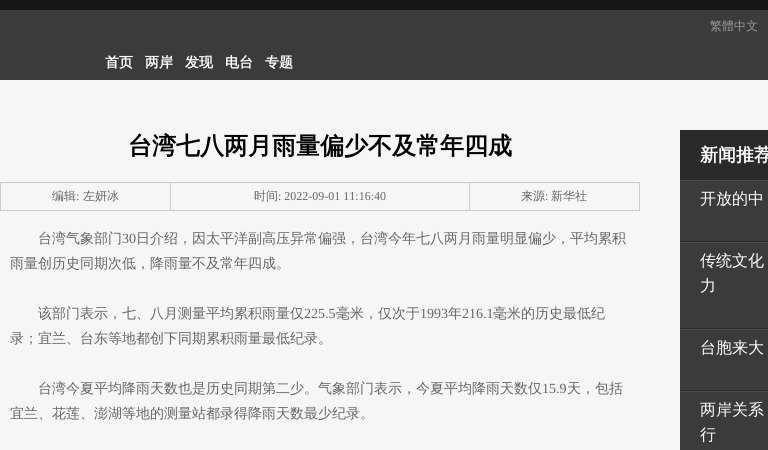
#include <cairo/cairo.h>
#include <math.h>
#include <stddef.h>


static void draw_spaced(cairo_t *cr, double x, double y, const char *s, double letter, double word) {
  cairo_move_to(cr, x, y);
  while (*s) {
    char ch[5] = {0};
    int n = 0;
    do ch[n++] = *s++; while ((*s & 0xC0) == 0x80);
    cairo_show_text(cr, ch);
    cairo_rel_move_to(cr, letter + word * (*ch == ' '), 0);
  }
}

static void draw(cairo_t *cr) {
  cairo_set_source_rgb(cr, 246 / 255.0, 246 / 255.0, 246 / 255.0);
  cairo_paint(cr);
  cairo_set_source_rgb(cr, 59 / 255.0, 59 / 255.0, 59 / 255.0);
  cairo_rectangle(cr, 0, 10, 768, 70);
  cairo_fill(cr);
  cairo_set_source_rgb(cr, 22 / 255.0, 22 / 255.0, 22 / 255.0);
  cairo_rectangle(cr, 0, 0, 768, 10);
  cairo_fill(cr);
  cairo_set_source_rgb(cr, 59 / 255.0, 59 / 255.0, 59 / 255.0);
  cairo_rectangle(cr, 680, 181, 88, 269);
  cairo_fill(cr);
  cairo_set_source_rgb(cr, 204 / 255.0, 204 / 255.0, 204 / 255.0);
  cairo_rectangle(cr, 0, 182, 640, 1);
  cairo_fill(cr);
  cairo_rectangle(cr, 639, 182, 1, 29);
  cairo_fill(cr);
  cairo_rectangle(cr, 0, 210, 640, 1);
  cairo_fill(cr);
  cairo_rectangle(cr, 0, 182, 1, 29);
  cairo_fill(cr);
  cairo_rectangle(cr, 170, 182, 1, 29);
  cairo_fill(cr);
  cairo_rectangle(cr, 469, 182, 1, 29);
  cairo_fill(cr);
  cairo_set_source_rgb(cr, 42 / 255.0, 42 / 255.0, 42 / 255.0);
  cairo_rectangle(cr, 680, 130, 88, 50);
  cairo_fill(cr);
  cairo_set_source_rgb(cr, 77 / 255.0, 77 / 255.0, 77 / 255.0);
  cairo_rectangle(cr, 680, 180, 88, 1);
  cairo_fill(cr);
  cairo_set_source_rgb(cr, 41 / 255.0, 41 / 255.0, 41 / 255.0);
  cairo_rectangle(cr, 680, 241, 88, 1);
  cairo_fill(cr);
  cairo_set_source_rgb(cr, 77 / 255.0, 77 / 255.0, 77 / 255.0);
  cairo_rectangle(cr, 680, 242, 88, 1);
  cairo_fill(cr);
  cairo_set_source_rgb(cr, 41 / 255.0, 41 / 255.0, 41 / 255.0);
  cairo_rectangle(cr, 680, 328, 88, 1);
  cairo_fill(cr);
  cairo_set_source_rgb(cr, 77 / 255.0, 77 / 255.0, 77 / 255.0);
  cairo_rectangle(cr, 680, 329, 88, 1);
  cairo_fill(cr);
  cairo_set_source_rgb(cr, 41 / 255.0, 41 / 255.0, 41 / 255.0);
  cairo_rectangle(cr, 680, 390, 88, 1);
  cairo_fill(cr);
  cairo_set_source_rgb(cr, 77 / 255.0, 77 / 255.0, 77 / 255.0);
  cairo_rectangle(cr, 680, 391, 88, 1);
  cairo_fill(cr);
  cairo_select_font_face(cr, "WenQuanYi Zen Hei Medium", CAIRO_FONT_SLANT_NORMAL, CAIRO_FONT_WEIGHT_NORMAL);
  cairo_set_font_size(cr, 12);
  cairo_set_source_rgb(cr, 153 / 255.0, 153 / 255.0, 153 / 255.0);
  cairo_move_to(cr, 710, 30);
  cairo_show_text(cr, "繁體中文");
  cairo_select_font_face(cr, "WenQuanYi Zen Hei", CAIRO_FONT_SLANT_NORMAL, CAIRO_FONT_WEIGHT_BOLD);
  cairo_set_font_size(cr, 14);
  cairo_set_source_rgb(cr, 1, 1, 1);
  cairo_move_to(cr, 105, 67);
  cairo_show_text(cr, "首页");
  cairo_move_to(cr, 145, 67);
  cairo_show_text(cr, "两岸");
  cairo_move_to(cr, 185, 67);
  cairo_show_text(cr, "发现");
  cairo_move_to(cr, 225, 67);
  cairo_show_text(cr, "电台");
  cairo_move_to(cr, 265, 67);
  cairo_show_text(cr, "专题");
  cairo_set_font_size(cr, 24);
  cairo_set_source_rgb(cr, 0, 0, 0);
  cairo_move_to(cr, 128, 154);
  cairo_show_text(cr, "台湾七八两月雨量偏少不及常年四成");
  cairo_select_font_face(cr, "WenQuanYi Zen Hei Medium", CAIRO_FONT_SLANT_NORMAL, CAIRO_FONT_WEIGHT_NORMAL);
  cairo_set_font_size(cr, 12);
  cairo_set_source_rgb(cr, 102 / 255.0, 102 / 255.0, 102 / 255.0);
  cairo_move_to(cr, 52, 200);
  cairo_show_text(cr, "编辑");
  cairo_select_font_face(cr, "Liberation Serif", CAIRO_FONT_SLANT_NORMAL, CAIRO_FONT_WEIGHT_NORMAL);
  cairo_move_to(cr, 76, 200);
  cairo_show_text(cr, ":");
  cairo_select_font_face(cr, "WenQuanYi Zen Hei Medium", CAIRO_FONT_SLANT_NORMAL, CAIRO_FONT_WEIGHT_NORMAL);
  cairo_move_to(cr, 83, 200);
  cairo_show_text(cr, "左妍冰");
  cairo_move_to(cr, 254, 200);
  cairo_show_text(cr, "时间");
  cairo_select_font_face(cr, "Liberation Serif", CAIRO_FONT_SLANT_NORMAL, CAIRO_FONT_WEIGHT_NORMAL);
  cairo_move_to(cr, 278, 200);
  cairo_show_text(cr, ": 2022-09-01 11:16:40");
  cairo_select_font_face(cr, "WenQuanYi Zen Hei Medium", CAIRO_FONT_SLANT_NORMAL, CAIRO_FONT_WEIGHT_NORMAL);
  cairo_move_to(cr, 521, 200);
  cairo_show_text(cr, "来源");
  cairo_select_font_face(cr, "Liberation Serif", CAIRO_FONT_SLANT_NORMAL, CAIRO_FONT_WEIGHT_NORMAL);
  cairo_move_to(cr, 545, 200);
  cairo_show_text(cr, ":");
  cairo_select_font_face(cr, "WenQuanYi Zen Hei Medium", CAIRO_FONT_SLANT_NORMAL, CAIRO_FONT_WEIGHT_NORMAL);
  cairo_move_to(cr, 551, 200);
  cairo_show_text(cr, "新华社");
  cairo_set_font_size(cr, 14);
  cairo_move_to(cr, 38, 243);
  cairo_show_text(cr, "台湾气象部门");
  cairo_select_font_face(cr, "Liberation Serif", CAIRO_FONT_SLANT_NORMAL, CAIRO_FONT_WEIGHT_NORMAL);
  cairo_move_to(cr, 122, 243);
  cairo_show_text(cr, "30");
  cairo_select_font_face(cr, "WenQuanYi Zen Hei Medium", CAIRO_FONT_SLANT_NORMAL, CAIRO_FONT_WEIGHT_NORMAL);
  cairo_move_to(cr, 136, 243);
  cairo_show_text(cr, "日介绍，因太平洋副高压异常偏强，台湾今年七八两月雨量明显偏少，平均累积");
  cairo_move_to(cr, 10, 268);
  cairo_show_text(cr, "雨量创历史同期次低，降雨量不及常年四成。");
  cairo_move_to(cr, 38, 318);
  cairo_show_text(cr, "该部门表示，七、八月测量平均累积雨量仅");
  cairo_select_font_face(cr, "Liberation Serif", CAIRO_FONT_SLANT_NORMAL, CAIRO_FONT_WEIGHT_NORMAL);
  cairo_move_to(cr, 304, 318);
  cairo_show_text(cr, "225.5");
  cairo_select_font_face(cr, "WenQuanYi Zen Hei Medium", CAIRO_FONT_SLANT_NORMAL, CAIRO_FONT_WEIGHT_NORMAL);
  cairo_move_to(cr, 336, 318);
  cairo_show_text(cr, "毫米，仅次于");
  cairo_select_font_face(cr, "Liberation Serif", CAIRO_FONT_SLANT_NORMAL, CAIRO_FONT_WEIGHT_NORMAL);
  cairo_move_to(cr, 420, 318);
  cairo_show_text(cr, "1993");
  cairo_select_font_face(cr, "WenQuanYi Zen Hei Medium", CAIRO_FONT_SLANT_NORMAL, CAIRO_FONT_WEIGHT_NORMAL);
  cairo_move_to(cr, 448, 318);
  cairo_show_text(cr, "年");
  cairo_select_font_face(cr, "Liberation Serif", CAIRO_FONT_SLANT_NORMAL, CAIRO_FONT_WEIGHT_NORMAL);
  cairo_move_to(cr, 462, 318);
  cairo_show_text(cr, "216.1");
  cairo_select_font_face(cr, "WenQuanYi Zen Hei Medium", CAIRO_FONT_SLANT_NORMAL, CAIRO_FONT_WEIGHT_NORMAL);
  cairo_move_to(cr, 493, 318);
  cairo_show_text(cr, "毫米的历史最低纪");
  cairo_move_to(cr, 10, 343);
  cairo_show_text(cr, "录；宜兰、台东等地都创下同期累积雨量最低纪录。");
  cairo_move_to(cr, 38, 393);
  cairo_show_text(cr, "台湾今夏平均降雨天数也是历史同期第二少。气象部门表示，今夏平均降雨天数仅");
  cairo_select_font_face(cr, "Liberation Serif", CAIRO_FONT_SLANT_NORMAL, CAIRO_FONT_WEIGHT_NORMAL);
  cairo_move_to(cr, 542, 393);
  cairo_show_text(cr, "15.9");
  cairo_select_font_face(cr, "WenQuanYi Zen Hei Medium", CAIRO_FONT_SLANT_NORMAL, CAIRO_FONT_WEIGHT_NORMAL);
  cairo_move_to(cr, 567, 393);
  cairo_show_text(cr, "天，包括");
  cairo_move_to(cr, 10, 418);
  cairo_show_text(cr, "宜兰、花莲、澎湖等地的测量站都录得降雨天数最少纪录。");
  cairo_select_font_face(cr, "WenQuanYi Zen Hei", CAIRO_FONT_SLANT_NORMAL, CAIRO_FONT_WEIGHT_BOLD);
  cairo_set_font_size(cr, 18);
  cairo_set_source_rgb(cr, 1, 1, 1);
  cairo_move_to(cr, 700, 161);
  cairo_show_text(cr, "新闻推荐");
  cairo_select_font_face(cr, "WenQuanYi Zen Hei Medium", CAIRO_FONT_SLANT_NORMAL, CAIRO_FONT_WEIGHT_NORMAL);
  cairo_set_font_size(cr, 16);
  draw_spaced(cr, 700, 204, "开放的中", 0, -1);
  cairo_move_to(cr, 700, 266);
  cairo_show_text(cr, "传统文化");
  cairo_move_to(cr, 700, 291);
  cairo_show_text(cr, "力");
  cairo_move_to(cr, 700, 353);
  cairo_show_text(cr, "台胞来大");
  cairo_move_to(cr, 700, 415);
  cairo_show_text(cr, "两岸关系");
  cairo_move_to(cr, 700, 440);
  cairo_show_text(cr, "行");
}

int main(void) {
  cairo_surface_t *surface = cairo_image_surface_create(CAIRO_FORMAT_RGB24, 768, 450);
  cairo_t *cr = cairo_create(surface);
  cairo_font_options_t *options = cairo_font_options_create();
  cairo_font_options_set_hint_metrics(options, CAIRO_HINT_METRICS_OFF);
  cairo_font_options_set_hint_style(options, CAIRO_HINT_STYLE_NONE);
  cairo_set_font_options(cr, options);
  cairo_set_miter_limit(cr, 4);
  draw(cr);
  cairo_surface_write_to_png(surface, "out.png");
  cairo_font_options_destroy(options);
  cairo_destroy(cr);
  cairo_surface_destroy(surface);
  return 0;
}
